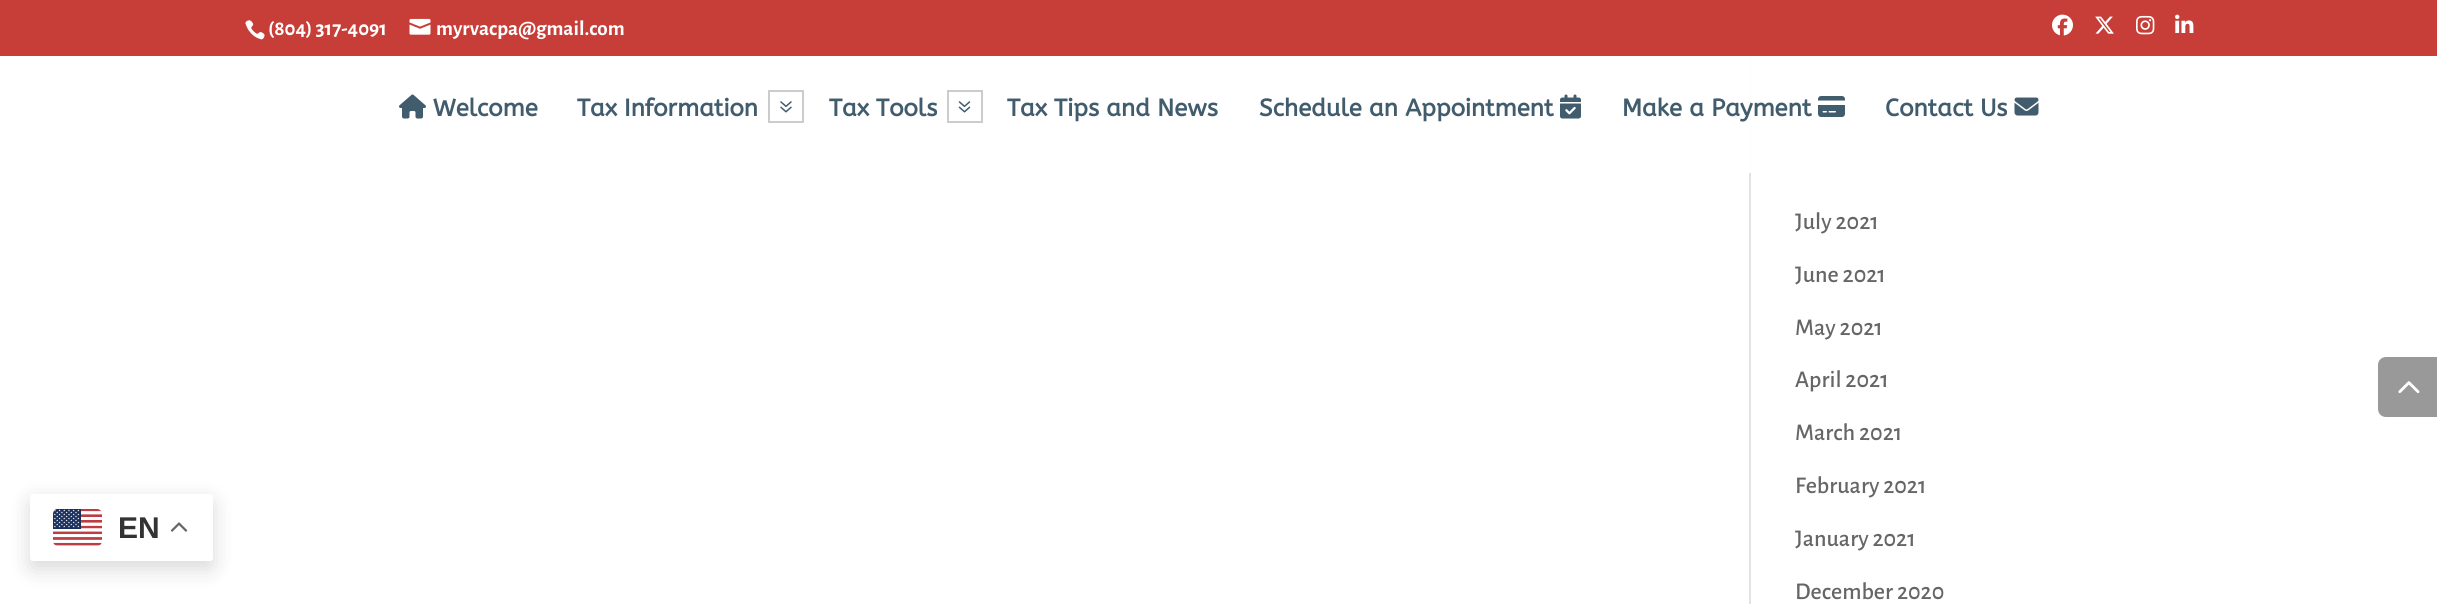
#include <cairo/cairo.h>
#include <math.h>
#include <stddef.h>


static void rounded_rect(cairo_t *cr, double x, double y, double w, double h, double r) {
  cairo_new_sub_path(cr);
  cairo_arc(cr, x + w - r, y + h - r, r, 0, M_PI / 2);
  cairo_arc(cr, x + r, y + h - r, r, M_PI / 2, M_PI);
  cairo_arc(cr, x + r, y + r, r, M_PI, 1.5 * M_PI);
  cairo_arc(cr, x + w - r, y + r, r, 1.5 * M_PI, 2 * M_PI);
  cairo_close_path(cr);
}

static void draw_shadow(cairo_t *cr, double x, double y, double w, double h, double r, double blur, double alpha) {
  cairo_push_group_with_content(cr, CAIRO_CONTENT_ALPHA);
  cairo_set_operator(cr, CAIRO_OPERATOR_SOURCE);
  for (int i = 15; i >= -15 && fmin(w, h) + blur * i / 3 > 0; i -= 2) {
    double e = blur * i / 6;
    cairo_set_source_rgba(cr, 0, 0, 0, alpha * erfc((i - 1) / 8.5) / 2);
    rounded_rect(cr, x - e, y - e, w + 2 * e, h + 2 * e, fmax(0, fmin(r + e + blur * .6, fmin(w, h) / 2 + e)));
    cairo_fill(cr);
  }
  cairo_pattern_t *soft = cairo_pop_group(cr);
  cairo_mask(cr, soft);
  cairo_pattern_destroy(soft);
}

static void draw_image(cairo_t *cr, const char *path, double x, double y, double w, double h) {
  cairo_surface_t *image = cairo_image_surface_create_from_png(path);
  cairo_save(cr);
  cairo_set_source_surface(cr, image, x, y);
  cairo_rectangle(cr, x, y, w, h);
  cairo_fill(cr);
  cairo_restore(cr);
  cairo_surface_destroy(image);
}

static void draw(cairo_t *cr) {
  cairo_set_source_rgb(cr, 1, 1, 1);
  cairo_paint(cr);
  cairo_set_source_rgb(cr, 0, 0, 0);
  draw_shadow(cr, 30, 501, 183, 68, 3, 11, 0.15);
  cairo_set_source_rgb(cr, 1, 1, 1);
  rounded_rect(cr, 30, 494, 183, 67, 3);
  cairo_fill(cr);
  draw_image(cr, "images/1.png", 53, 509, 49, 37);
  draw_image(cr, "images/2.png", 171, 522, 17, 10);
  cairo_set_source_rgb(cr, 198 / 255.0, 62 / 255.0, 55 / 255.0);
  cairo_rectangle(cr, 0, 0, 2437, 56);
  cairo_fill(cr);
  draw_image(cr, "images/3.png", 245, 20, 20, 20);
  draw_image(cr, "images/4.png", 409, 18, 22, 17);
  draw_image(cr, "images/5.png", 2052, 14, 21, 22);
  draw_image(cr, "images/6.png", 2095, 16, 19, 18);
  draw_image(cr, "images/7.png", 2136, 15, 19, 20);
  draw_image(cr, "images/8.png", 2175, 14, 19, 19);
  cairo_set_source_rgb(cr, 226 / 255.0, 226 / 255.0, 226 / 255.0);
  cairo_rectangle(cr, 1749, 56, 2, 548);
  cairo_fill(cr);
  cairo_set_source_rgba(cr, 1, 1, 1, 0.97);
  cairo_rectangle(cr, 1749, 56, 2, 117);
  cairo_fill(cr);
  draw_image(cr, "images/9.png", 399, 94, 27, 25);
  cairo_rectangle(cr, 769, 91, 34, 31);
  cairo_set_source_rgb(cr, 204 / 255.0, 204 / 255.0, 204 / 255.0);
  cairo_stroke(cr);
  draw_image(cr, "images/10.png", 780, 101, 12, 12);
  cairo_rectangle(cr, 948, 91, 34, 31);
  cairo_stroke(cr);
  draw_image(cr, "images/11.png", 958, 101, 13, 12);
  draw_image(cr, "images/12.png", 1560, 94, 21, 25);
  draw_image(cr, "images/13.png", 1818, 96, 27, 21);
  draw_image(cr, "images/14.png", 2014, 97, 25, 19);
  cairo_set_source_rgb(cr, 153 / 255.0, 153 / 255.0, 153 / 255.0);
  cairo_new_path(cr);
  cairo_move_to(cr, 2386, 357);
  cairo_line_to(cr, 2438, 357);
  cairo_line_to(cr, 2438, 417);
  cairo_line_to(cr, 2386, 417);
  cairo_curve_to(cr, 2381.5, 417, 2378, 413.5, 2378, 409);
  cairo_line_to(cr, 2378, 365);
  cairo_curve_to(cr, 2378, 360.5, 2381.5, 357, 2386, 357);
  cairo_close_path(cr);
  cairo_fill(cr);
  draw_image(cr, "images/15.png", 2398, 381, 22, 13);
  cairo_select_font_face(cr, "Liberation Sans", CAIRO_FONT_SLANT_NORMAL, CAIRO_FONT_WEIGHT_BOLD);
  cairo_set_font_size(cr, 30);
  cairo_set_source_rgb(cr, 51 / 255.0, 51 / 255.0, 51 / 255.0);
  cairo_move_to(cr, 118, 538);
  cairo_show_text(cr, "EN");
  cairo_select_font_face(cr, "Alegreya Sans", CAIRO_FONT_SLANT_NORMAL, CAIRO_FONT_WEIGHT_BOLD);
  cairo_set_font_size(cr, 21);
  cairo_set_source_rgb(cr, 1, 1, 1);
  cairo_move_to(cr, 268, 35);
  cairo_show_text(cr, "(804) 317-4091");
  cairo_move_to(cr, 436, 35);
  cairo_show_text(cr, "myrvacpa@gmail.com");
  cairo_select_font_face(cr, "ABeeZee", CAIRO_FONT_SLANT_NORMAL, CAIRO_FONT_WEIGHT_BOLD);
  cairo_set_font_size(cr, 24);
  cairo_set_source_rgb(cr, 65 / 255.0, 92 / 255.0, 109 / 255.0);
  cairo_move_to(cr, 433, 116);
  cairo_show_text(cr, "Welcome");
  cairo_move_to(cr, 577, 116);
  cairo_show_text(cr, "Tax Information");
  cairo_move_to(cr, 829, 116);
  cairo_show_text(cr, "Tax Tools");
  cairo_move_to(cr, 1007, 116);
  cairo_show_text(cr, "Tax Tips and News");
  cairo_move_to(cr, 1259, 116);
  cairo_show_text(cr, "Schedule an Appointment");
  cairo_move_to(cr, 1622, 116);
  cairo_show_text(cr, "Make a Payment");
  cairo_move_to(cr, 1885, 116);
  cairo_show_text(cr, "Contact Us");
  cairo_select_font_face(cr, "Alegreya Sans Medium", CAIRO_FONT_SLANT_NORMAL, CAIRO_FONT_WEIGHT_NORMAL);
  cairo_set_source_rgb(cr, 102 / 255.0, 102 / 255.0, 102 / 255.0);
  cairo_move_to(cr, 1795, 229);
  cairo_show_text(cr, "July 2021");
  cairo_move_to(cr, 1795, 282);
  cairo_show_text(cr, "June 2021");
  cairo_move_to(cr, 1795, 335);
  cairo_show_text(cr, "May 2021");
  cairo_move_to(cr, 1795, 387);
  cairo_show_text(cr, "April 2021");
  cairo_move_to(cr, 1795, 440);
  cairo_show_text(cr, "March 2021");
  cairo_move_to(cr, 1795, 493);
  cairo_show_text(cr, "February 2021");
  cairo_move_to(cr, 1795, 546);
  cairo_show_text(cr, "January 2021");
  cairo_move_to(cr, 1795, 599);
  cairo_show_text(cr, "December 2020");
}

int main(void) {
  cairo_surface_t *surface = cairo_image_surface_create(CAIRO_FORMAT_RGB24, 2437, 604);
  cairo_t *cr = cairo_create(surface);
  cairo_font_options_t *options = cairo_font_options_create();
  cairo_font_options_set_hint_metrics(options, CAIRO_HINT_METRICS_OFF);
  cairo_font_options_set_hint_style(options, CAIRO_HINT_STYLE_NONE);
  cairo_set_font_options(cr, options);
  cairo_set_miter_limit(cr, 4);
  draw(cr);
  cairo_surface_write_to_png(surface, "out.png");
  cairo_font_options_destroy(options);
  cairo_destroy(cr);
  cairo_surface_destroy(surface);
  return 0;
}
